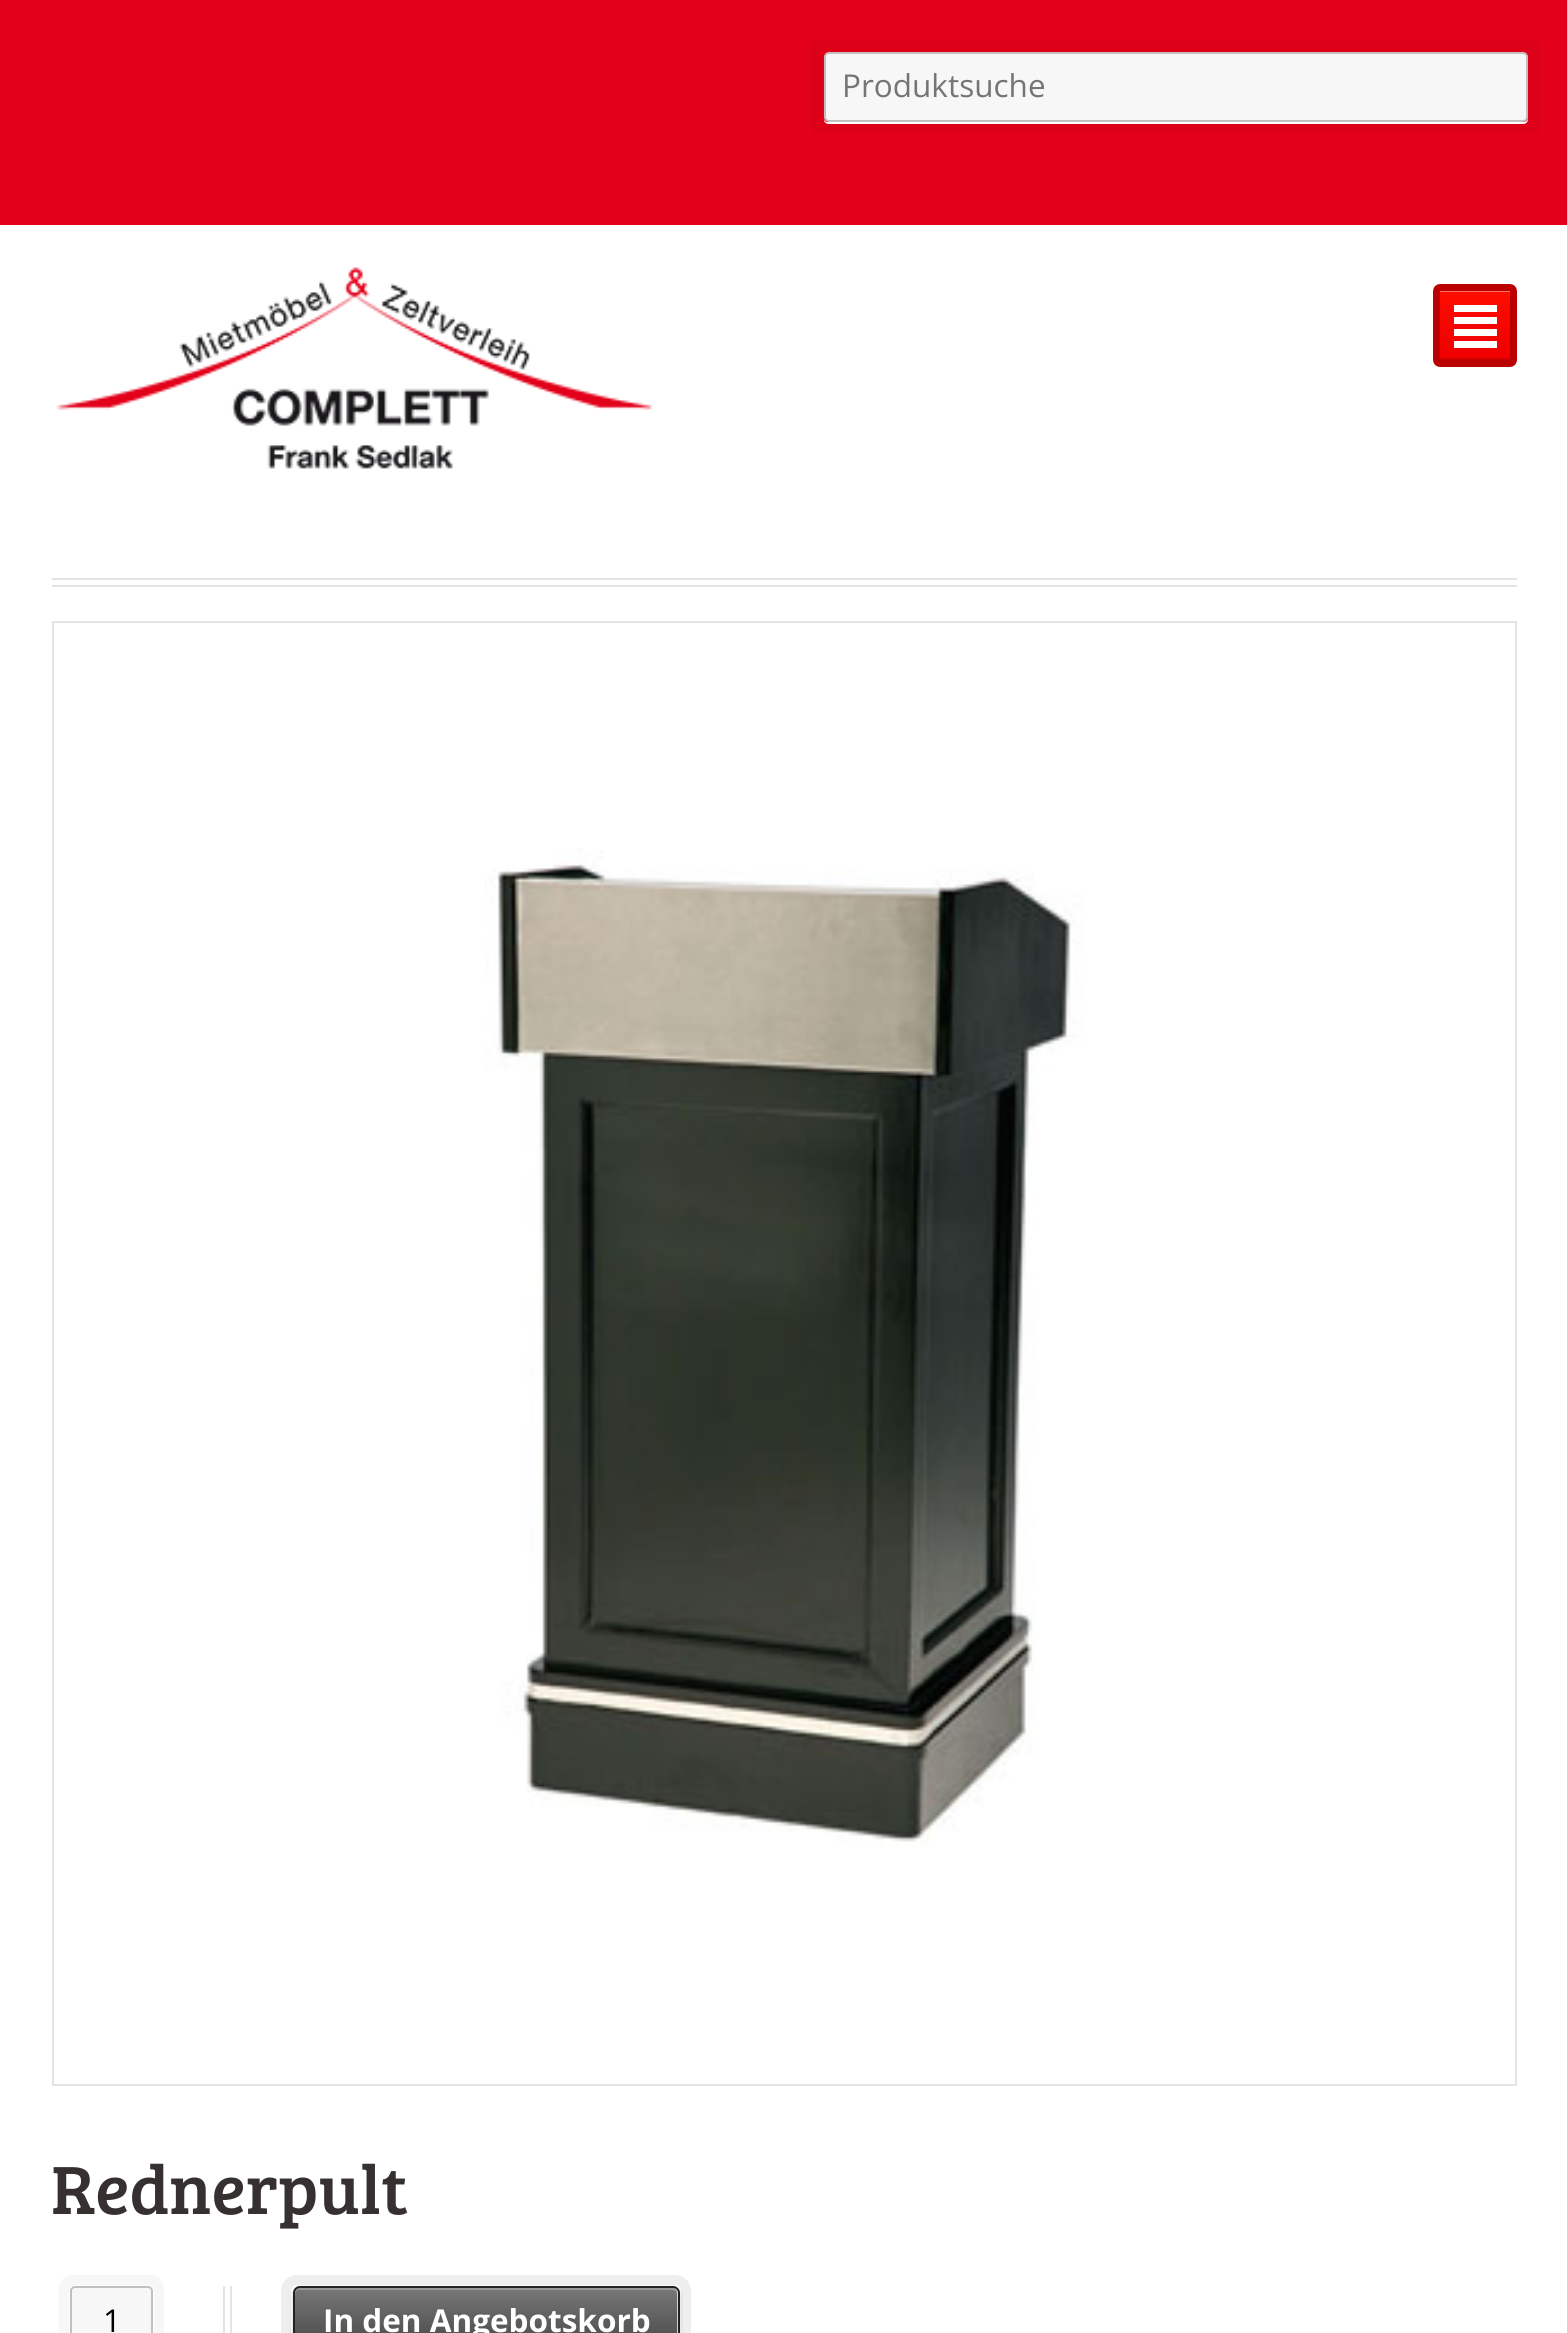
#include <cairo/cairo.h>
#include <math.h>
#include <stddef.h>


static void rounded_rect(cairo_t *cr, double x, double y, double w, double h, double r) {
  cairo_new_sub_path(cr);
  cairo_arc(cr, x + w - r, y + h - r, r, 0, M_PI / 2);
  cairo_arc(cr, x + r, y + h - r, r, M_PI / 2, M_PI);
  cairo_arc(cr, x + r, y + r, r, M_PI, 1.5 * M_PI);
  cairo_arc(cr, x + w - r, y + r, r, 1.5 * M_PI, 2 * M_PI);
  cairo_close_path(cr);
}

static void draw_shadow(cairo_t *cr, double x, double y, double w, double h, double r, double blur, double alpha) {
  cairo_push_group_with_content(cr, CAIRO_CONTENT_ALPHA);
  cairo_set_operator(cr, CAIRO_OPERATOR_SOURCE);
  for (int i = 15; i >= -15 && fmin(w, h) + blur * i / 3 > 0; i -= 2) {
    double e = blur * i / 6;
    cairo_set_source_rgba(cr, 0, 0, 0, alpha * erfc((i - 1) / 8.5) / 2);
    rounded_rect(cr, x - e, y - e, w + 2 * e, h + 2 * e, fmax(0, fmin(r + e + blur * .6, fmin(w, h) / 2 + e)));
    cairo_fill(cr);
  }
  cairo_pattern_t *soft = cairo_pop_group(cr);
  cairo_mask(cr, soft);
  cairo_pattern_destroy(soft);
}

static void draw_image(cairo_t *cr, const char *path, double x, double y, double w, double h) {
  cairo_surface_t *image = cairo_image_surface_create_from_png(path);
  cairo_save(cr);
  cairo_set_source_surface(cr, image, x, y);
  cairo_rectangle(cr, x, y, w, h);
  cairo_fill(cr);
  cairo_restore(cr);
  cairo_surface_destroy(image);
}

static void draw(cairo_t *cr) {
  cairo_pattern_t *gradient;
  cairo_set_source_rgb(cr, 1, 1, 1);
  cairo_paint(cr);
  cairo_set_source_rgb(cr, 226 / 255.0, 0, 26 / 255.0);
  cairo_rectangle(cr, 0, 0, 1567, 225);
  cairo_fill(cr);
  cairo_set_source_rgb(cr, 1, 1, 1);
  cairo_new_path(cr);
  cairo_move_to(cr, 824, 120);
  cairo_curve_to(cr, 824, 122, 826, 124, 829, 124);
  cairo_line_to(cr, 1523, 124);
  cairo_curve_to(cr, 1526, 124, 1528, 122, 1528, 119);
  cairo_line_to(cr, 1528, 57);
  cairo_line_to(cr, 1528, 118);
  cairo_curve_to(cr, 1528, 120, 1526, 122, 1524, 122);
  cairo_line_to(cr, 827, 122);
  cairo_curve_to(cr, 826, 122, 825, 121, 824, 120);
  cairo_close_path(cr);
  cairo_fill(cr);
  cairo_rectangle(cr, 817, 46, 717, 82);
  cairo_set_source_rgba(cr, 0, 0, 0, 0.03);
  cairo_set_line_width(cr, 10);
  cairo_stroke(cr);
  cairo_set_source_rgb(cr, 247 / 255.0, 247 / 255.0, 247 / 255.0);
  rounded_rect(cr, 825, 53, 702, 68, 4);
  cairo_fill_preserve(cr);
  cairo_set_source_rgb(cr, 196 / 255.0, 191 / 255.0, 191 / 255.0);
  cairo_set_line_width(cr, 2);
  cairo_stroke(cr);
  cairo_set_source_rgb(cr, 232 / 255.0, 227 / 255.0, 227 / 255.0);
  cairo_rectangle(cr, 52, 578, 1465, 2);
  cairo_fill(cr);
  cairo_rectangle(cr, 52, 585, 1465, 2);
  cairo_fill(cr);
  draw_image(cr, "images/1.png", 56, 267, 597, 202);
  gradient = cairo_pattern_create_linear(1475, 290, 1475, 360);
  cairo_pattern_add_color_stop_rgba(gradient, 0, 1, 12 / 255.0, 0, 1);
  cairo_pattern_add_color_stop_rgba(gradient, 1, 238 / 255.0, 0, 0, 1);
  cairo_set_source(cr, gradient);
  cairo_pattern_destroy(gradient);
  cairo_rectangle(cr, 1440, 292, 70, 66);
  cairo_fill(cr);
  cairo_set_source_rgb(cr, 204 / 255.0, 0, 0);
  cairo_rectangle(cr, 1440, 358, 70, 2);
  cairo_fill(cr);
  cairo_set_source_rgb(cr, 1, 109 / 255.0, 102 / 255.0);
  cairo_rectangle(cr, 1440, 291, 70, 1);
  cairo_fill(cr);
  rounded_rect(cr, 1436.5, 287.5, 77, 76, 3.5);
  cairo_set_source_rgb(cr, 187 / 255.0, 0, 0);
  cairo_set_line_width(cr, 7);
  cairo_stroke(cr);
  cairo_set_source_rgb(cr, 1, 1, 1);
  cairo_new_path(cr);
  cairo_move_to(cr, 1497, 341);
  cairo_line_to(cr, 1497, 348);
  cairo_line_to(cr, 1454, 348);
  cairo_line_to(cr, 1454, 341);
  cairo_close_path(cr);
  cairo_move_to(cr, 1497, 329);
  cairo_line_to(cr, 1497, 336);
  cairo_line_to(cr, 1454, 336);
  cairo_line_to(cr, 1454, 329);
  cairo_close_path(cr);
  cairo_move_to(cr, 1497, 317);
  cairo_line_to(cr, 1497, 324);
  cairo_line_to(cr, 1454, 324);
  cairo_line_to(cr, 1454, 317);
  cairo_close_path(cr);
  cairo_move_to(cr, 1497, 305);
  cairo_line_to(cr, 1497, 312);
  cairo_line_to(cr, 1454, 312);
  cairo_line_to(cr, 1454, 305);
  cairo_close_path(cr);
  cairo_fill(cr);
  cairo_rectangle(cr, 53, 622, 1463, 1463);
  cairo_set_source_rgb(cr, 232 / 255.0, 227 / 255.0, 227 / 255.0);
  cairo_set_line_width(cr, 2);
  cairo_stroke(cr);
  draw_image(cr, "images/2.png", 484, 848, 600, 999);
  cairo_rectangle(cr, 223, 2286, 2, 47);
  cairo_fill(cr);
  cairo_rectangle(cr, 230, 2286, 2, 47);
  cairo_fill(cr);
  rounded_rect(cr, 64, 2280, 95, 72, 9);
  cairo_set_source_rgb(cr, 247 / 255.0, 247 / 255.0, 247 / 255.0);
  cairo_set_line_width(cr, 10);
  cairo_stroke(cr);
  rounded_rect(cr, 71, 2287, 81, 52, 4);
  cairo_fill_preserve(cr);
  cairo_set_source_rgb(cr, 196 / 255.0, 191 / 255.0, 191 / 255.0);
  cairo_set_line_width(cr, 2);
  cairo_stroke(cr);
  cairo_set_source_rgb(cr, 0, 0, 0);
  draw_shadow(cr, 293, 2288, 387, 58, 7, 2, 0.2);
  rounded_rect(cr, 286, 2280, 400, 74, 11);
  cairo_set_source_rgba(cr, 0, 0, 0, 0.07);
  cairo_set_line_width(cr, 10);
  cairo_stroke(cr);
  gradient = cairo_pattern_create_linear(486, 2288, 486, 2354);
  cairo_pattern_add_color_stop_rgba(gradient, 0, 119 / 255.0, 119 / 255.0, 119 / 255.0, 1);
  cairo_pattern_add_color_stop_rgba(gradient, 1, 68 / 255.0, 68 / 255.0, 68 / 255.0, 1);
  cairo_set_source(cr, gradient);
  cairo_pattern_destroy(gradient);
  rounded_rect(cr, 295, 2288, 382, 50, 5);
  cairo_fill(cr);
  cairo_set_source_rgb(cr, 153 / 255.0, 153 / 255.0, 153 / 255.0);
  cairo_new_path(cr);
  cairo_move_to(cr, 299, 2290);
  cairo_line_to(cr, 673, 2290);
  cairo_curve_to(cr, 675, 2290, 677, 2292, 677, 2295);
  cairo_line_to(cr, 677, 2293);
  cairo_curve_to(cr, 677, 2290, 675, 2288, 672, 2288);
  cairo_line_to(cr, 300, 2288);
  cairo_curve_to(cr, 297, 2288, 295, 2290, 295, 2293);
  cairo_line_to(cr, 295, 2295);
  cairo_curve_to(cr, 295, 2292, 297, 2290, 299, 2290);
  cairo_close_path(cr);
  cairo_fill(cr);
  rounded_rect(cr, 294, 2287, 385, 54, 6);
  cairo_set_source_rgb(cr, 34 / 255.0, 34 / 255.0, 34 / 255.0);
  cairo_set_line_width(cr, 2);
  cairo_stroke(cr);
  cairo_select_font_face(cr, "Open Sans", CAIRO_FONT_SLANT_NORMAL, CAIRO_FONT_WEIGHT_NORMAL);
  cairo_set_font_size(cr, 31.5);
  cairo_set_source_rgb(cr, 117 / 255.0, 117 / 255.0, 117 / 255.0);
  cairo_move_to(cr, 842, 97);
  cairo_show_text(cr, "Produktsuche");
  cairo_select_font_face(cr, "Bree Serif", CAIRO_FONT_SLANT_NORMAL, CAIRO_FONT_WEIGHT_NORMAL);
  cairo_set_font_size(cr, 70.5);
  cairo_set_source_rgb(cr, 54 / 255.0, 48 / 255.0, 48 / 255.0);
  cairo_move_to(cr, 51, 2214);
  cairo_show_text(cr, "Rednerpult");
  cairo_select_font_face(cr, "Open Sans", CAIRO_FONT_SLANT_NORMAL, CAIRO_FONT_WEIGHT_NORMAL);
  cairo_set_font_size(cr, 31.5);
  cairo_set_source_rgb(cr, 0, 0, 0);
  cairo_move_to(cr, 103, 2332);
  cairo_show_text(cr, "1");
  cairo_select_font_face(cr, "Open Sans", CAIRO_FONT_SLANT_NORMAL, CAIRO_FONT_WEIGHT_BOLD);
  cairo_set_source_rgb(cr, 1, 1, 1);
  cairo_move_to(cr, 323, 2332);
  cairo_show_text(cr, "In den Angebotskorb");
}

int main(void) {
  cairo_surface_t *surface = cairo_image_surface_create(CAIRO_FORMAT_RGB24, 1567, 2333);
  cairo_t *cr = cairo_create(surface);
  cairo_font_options_t *options = cairo_font_options_create();
  cairo_font_options_set_hint_metrics(options, CAIRO_HINT_METRICS_OFF);
  cairo_font_options_set_hint_style(options, CAIRO_HINT_STYLE_NONE);
  cairo_set_font_options(cr, options);
  cairo_set_miter_limit(cr, 4);
  draw(cr);
  cairo_surface_write_to_png(surface, "out.png");
  cairo_font_options_destroy(options);
  cairo_destroy(cr);
  cairo_surface_destroy(surface);
  return 0;
}
